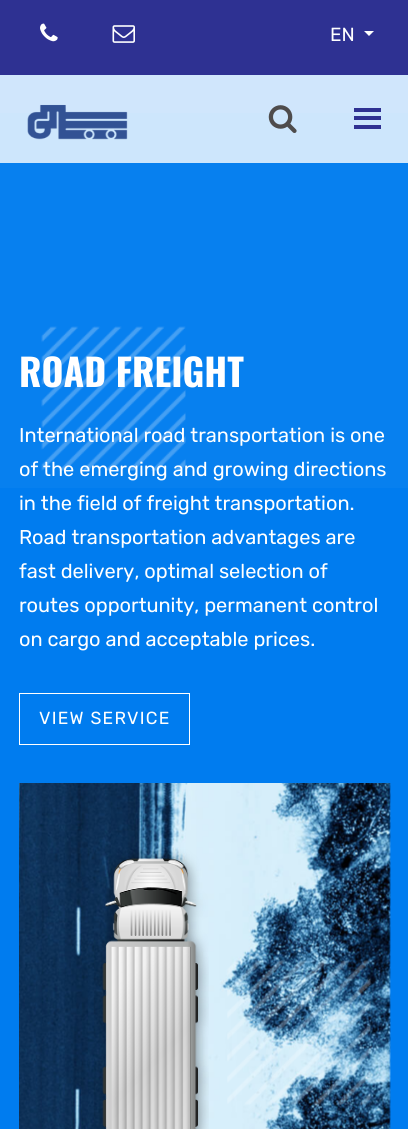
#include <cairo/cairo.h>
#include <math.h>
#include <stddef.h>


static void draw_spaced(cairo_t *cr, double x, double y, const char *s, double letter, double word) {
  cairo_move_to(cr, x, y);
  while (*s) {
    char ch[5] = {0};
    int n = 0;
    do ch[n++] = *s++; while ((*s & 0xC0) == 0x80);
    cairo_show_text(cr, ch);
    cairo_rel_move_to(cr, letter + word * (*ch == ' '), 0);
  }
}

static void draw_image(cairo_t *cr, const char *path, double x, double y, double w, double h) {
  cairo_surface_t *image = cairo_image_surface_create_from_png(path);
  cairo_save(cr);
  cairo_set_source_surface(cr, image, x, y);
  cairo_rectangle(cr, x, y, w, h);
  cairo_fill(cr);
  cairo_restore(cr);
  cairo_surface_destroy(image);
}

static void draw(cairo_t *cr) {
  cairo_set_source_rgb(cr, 19 / 255.0, 128 / 255.0, 240 / 255.0);
  cairo_paint(cr);
  cairo_set_source_rgb(cr, 0, 124 / 255.0, 239 / 255.0);
  cairo_rectangle(cr, 0, 113, 408, 1016);
  cairo_fill(cr);
  draw_image(cr, "images/5.png", 41, 326, 145, 145);
  cairo_set_source_rgba(cr, 1, 1, 1, 0.03);
  cairo_rectangle(cr, 0, 113, 408, 375);
  cairo_fill(cr);
  cairo_set_source_rgba(cr, 1, 1, 1, 0.8);
  cairo_rectangle(cr, 0, 75, 408, 88);
  cairo_fill(cr);
  cairo_set_source_rgb(cr, 46 / 255.0, 49 / 255.0, 146 / 255.0);
  cairo_rectangle(cr, 0, 0, 408, 75);
  cairo_fill(cr);
  draw_image(cr, "images/1.png", 40, 23, 18, 19);
  draw_image(cr, "images/2.png", 112, 25, 23, 18);
  cairo_set_source_rgb(cr, 1, 1, 1);
  cairo_new_path(cr);
  cairo_move_to(cr, 364, 31);
  cairo_line_to(cr, 374, 31);
  cairo_line_to(cr, 369, 36);
  cairo_close_path(cr);
  cairo_fill(cr);
  draw_image(cr, "images/3.png", 27, 104, 101, 36);
  draw_image(cr, "images/4.png", 268, 105, 29, 28);
  cairo_set_source_rgb(cr, 47 / 255.0, 49 / 255.0, 146 / 255.0);
  cairo_rectangle(cr, 354, 108, 27, 4);
  cairo_fill(cr);
  cairo_rectangle(cr, 354, 116, 27, 4);
  cairo_fill(cr);
  cairo_rectangle(cr, 354, 125, 27, 4);
  cairo_fill(cr);
  cairo_rectangle(cr, 19.5, 693.5, 170, 51);
  cairo_set_source_rgb(cr, 1, 1, 1);
  cairo_set_line_width(cr, 1);
  cairo_stroke(cr);
  draw_image(cr, "images/6.png", 19, 783, 372, 346);
  draw_image(cr, "images/7.png", 94, 849, 115, 280);
  draw_image(cr, "images/8.png", 227, 960, 144, 145);
  cairo_select_font_face(cr, "Rubik", CAIRO_FONT_SLANT_NORMAL, CAIRO_FONT_WEIGHT_NORMAL);
  cairo_set_font_size(cr, 19);
  cairo_move_to(cr, 330, 41);
  cairo_show_text(cr, "EN");
  cairo_select_font_face(cr, "Oswald", CAIRO_FONT_SLANT_NORMAL, CAIRO_FONT_WEIGHT_BOLD);
  cairo_set_font_size(cr, 37.5);
  cairo_move_to(cr, 19, 387);
  cairo_show_text(cr, "ROAD FREIGHT");
  cairo_select_font_face(cr, "Rubik", CAIRO_FONT_SLANT_NORMAL, CAIRO_FONT_WEIGHT_NORMAL);
  cairo_set_font_size(cr, 20);
  cairo_move_to(cr, 19, 442);
  cairo_show_text(cr, "International road transportation is one");
  cairo_move_to(cr, 19, 476);
  cairo_show_text(cr, "of the emerging and growing directions");
  cairo_move_to(cr, 19, 510);
  cairo_show_text(cr, "in the field of freight transportation.");
  cairo_move_to(cr, 19, 544);
  cairo_show_text(cr, "Road transportation advantages are");
  cairo_move_to(cr, 19, 578);
  cairo_show_text(cr, "fast delivery, optimal selection of");
  cairo_move_to(cr, 19, 612);
  cairo_show_text(cr, "routes opportunity, permanent control");
  cairo_move_to(cr, 19, 646);
  cairo_show_text(cr, "on cargo and acceptable prices.");
  cairo_set_font_size(cr, 17.5);
  draw_spaced(cr, 39, 724, "VIEW SERVICE", 1.25, 0);
}

int main(void) {
  cairo_surface_t *surface = cairo_image_surface_create(CAIRO_FORMAT_RGB24, 408, 1129);
  cairo_t *cr = cairo_create(surface);
  cairo_font_options_t *options = cairo_font_options_create();
  cairo_font_options_set_hint_metrics(options, CAIRO_HINT_METRICS_OFF);
  cairo_font_options_set_hint_style(options, CAIRO_HINT_STYLE_NONE);
  cairo_set_font_options(cr, options);
  cairo_set_miter_limit(cr, 4);
  draw(cr);
  cairo_surface_write_to_png(surface, "out.png");
  cairo_font_options_destroy(options);
  cairo_destroy(cr);
  cairo_surface_destroy(surface);
  return 0;
}
